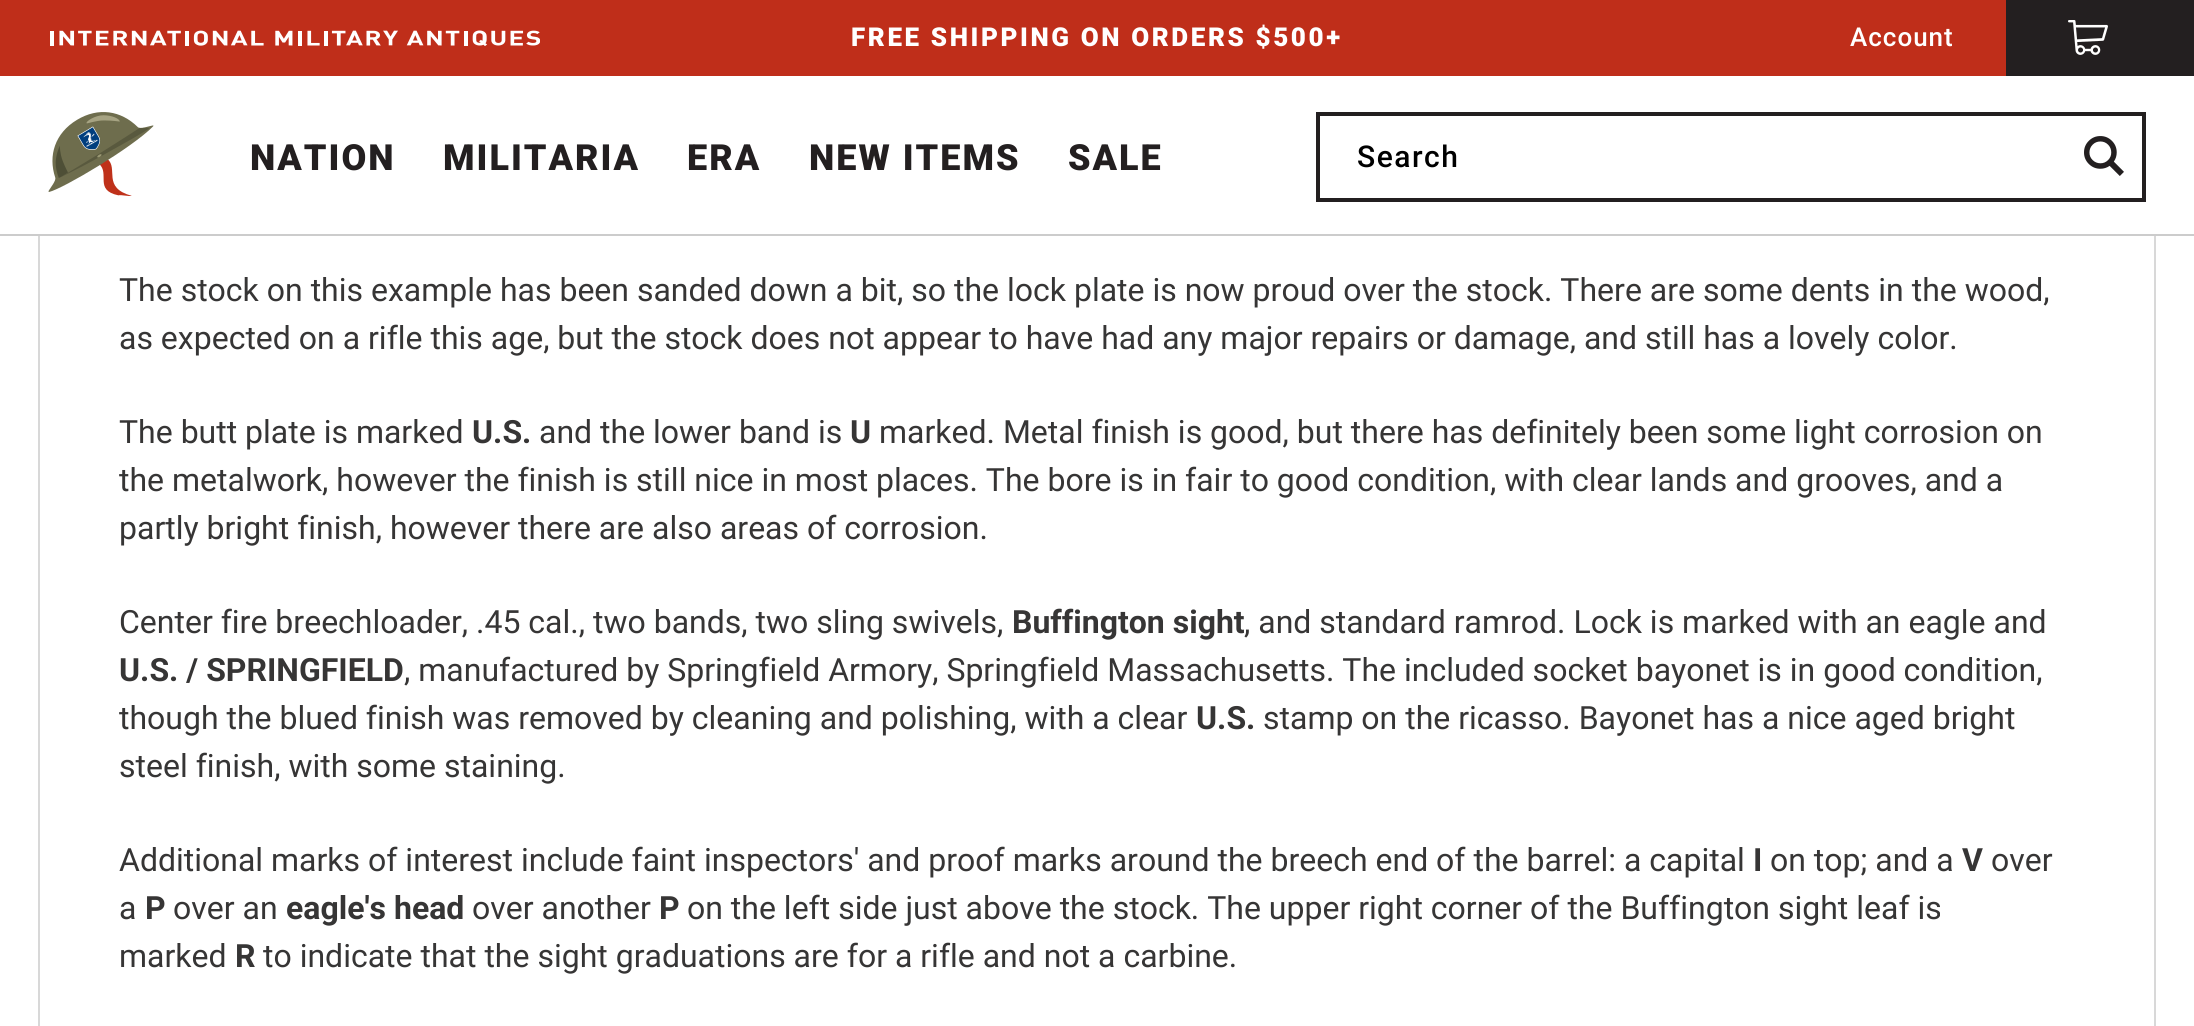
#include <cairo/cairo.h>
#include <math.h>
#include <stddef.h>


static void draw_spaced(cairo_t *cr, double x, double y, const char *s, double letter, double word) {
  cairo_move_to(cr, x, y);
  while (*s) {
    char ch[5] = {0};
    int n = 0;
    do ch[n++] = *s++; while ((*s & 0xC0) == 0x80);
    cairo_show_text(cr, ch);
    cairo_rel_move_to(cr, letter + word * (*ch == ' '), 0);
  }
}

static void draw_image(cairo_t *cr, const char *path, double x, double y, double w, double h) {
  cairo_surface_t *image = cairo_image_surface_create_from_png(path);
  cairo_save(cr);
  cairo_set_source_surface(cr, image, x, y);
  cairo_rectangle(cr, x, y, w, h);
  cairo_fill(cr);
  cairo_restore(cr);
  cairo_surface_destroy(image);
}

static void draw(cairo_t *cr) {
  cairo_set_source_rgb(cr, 1, 1, 1);
  cairo_paint(cr);
  cairo_rectangle(cr, 39, -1, 2116, 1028);
  cairo_set_source_rgb(cr, 216 / 255.0, 216 / 255.0, 216 / 255.0);
  cairo_stroke(cr);
  cairo_set_source_rgb(cr, 1, 1, 1);
  cairo_rectangle(cr, 38, 76, 2118, 158);
  cairo_fill(cr);
  cairo_set_source_rgb(cr, 204 / 255.0, 204 / 255.0, 204 / 255.0);
  cairo_rectangle(cr, 0, 234, 2194, 2);
  cairo_fill(cr);
  cairo_set_source_rgb(cr, 191 / 255.0, 46 / 255.0, 26 / 255.0);
  cairo_rectangle(cr, 0, 0, 2006, 76);
  cairo_fill(cr);
  draw_image(cr, "images/1.png", 50, 30, 490, 16);
  cairo_set_source_rgb(cr, 35 / 255.0, 31 / 255.0, 32 / 255.0);
  cairo_rectangle(cr, 2006, 0, 188, 76);
  cairo_fill(cr);
  draw_image(cr, "images/2.png", 2068, 20, 40, 35);
  draw_image(cr, "images/3.png", 48, 112, 106, 84);
  cairo_rectangle(cr, 1318, 114, 826, 86);
  cairo_set_line_width(cr, 4);
  cairo_stroke(cr);
  draw_image(cr, "images/4.png", 2084, 136, 40, 40);
  cairo_select_font_face(cr, "Roboto Black", CAIRO_FONT_SLANT_NORMAL, CAIRO_FONT_WEIGHT_NORMAL);
  cairo_set_font_size(cr, 26);
  cairo_set_source_rgb(cr, 1, 1, 1);
  draw_spaced(cr, 851, 46, "FREE SHIPPING ON ORDERS $500+", 2.6, 0);
  cairo_select_font_face(cr, "Roboto Medium", CAIRO_FONT_SLANT_NORMAL, CAIRO_FONT_WEIGHT_NORMAL);
  draw_spaced(cr, 1850, 46, "Account", 1, 0);
  cairo_select_font_face(cr, "Roboto Black", CAIRO_FONT_SLANT_NORMAL, CAIRO_FONT_WEIGHT_NORMAL);
  cairo_set_font_size(cr, 36);
  cairo_set_source_rgb(cr, 35 / 255.0, 31 / 255.0, 32 / 255.0);
  draw_spaced(cr, 250, 170, "NATION", 2, 0);
  draw_spaced(cr, 443, 170, "MILITARIA", 2, 0);
  draw_spaced(cr, 687, 170, "ERA", 2, 0);
  draw_spaced(cr, 809, 170, "NEW ITEMS", 2, 0);
  draw_spaced(cr, 1068, 170, "SALE", 2, 0);
  cairo_select_font_face(cr, "Roboto Medium", CAIRO_FONT_SLANT_NORMAL, CAIRO_FONT_WEIGHT_NORMAL);
  cairo_set_font_size(cr, 30);
  cairo_set_source_rgb(cr, 0, 0, 0);
  draw_spaced(cr, 1357, 167, "Search", 1.5, 0);
  cairo_select_font_face(cr, "Roboto", CAIRO_FONT_SLANT_NORMAL, CAIRO_FONT_WEIGHT_NORMAL);
  cairo_set_font_size(cr, 32);
  cairo_set_source_rgb(cr, 54 / 255.0, 53 / 255.0, 53 / 255.0);
  cairo_move_to(cr, 119, 301);
  cairo_show_text(cr, "The stock on this example has been sanded down a bit, so the lock plate is now proud over the stock. There are some dents in the wood,");
  cairo_move_to(cr, 119, 349);
  cairo_show_text(cr, "as expected on a rifle this age, but the stock does not appear to have had any major repairs or damage, and still has a lovely color.");
  cairo_move_to(cr, 119, 443);
  cairo_show_text(cr, "The butt plate is marked");
  cairo_select_font_face(cr, "Roboto", CAIRO_FONT_SLANT_NORMAL, CAIRO_FONT_WEIGHT_BOLD);
  cairo_move_to(cr, 472, 443);
  cairo_show_text(cr, "U.S.");
  cairo_select_font_face(cr, "Roboto", CAIRO_FONT_SLANT_NORMAL, CAIRO_FONT_WEIGHT_NORMAL);
  cairo_move_to(cr, 539, 443);
  cairo_show_text(cr, "and the lower band is");
  cairo_select_font_face(cr, "Roboto", CAIRO_FONT_SLANT_NORMAL, CAIRO_FONT_WEIGHT_BOLD);
  cairo_move_to(cr, 850, 443);
  cairo_show_text(cr, "U");
  cairo_select_font_face(cr, "Roboto", CAIRO_FONT_SLANT_NORMAL, CAIRO_FONT_WEIGHT_NORMAL);
  cairo_move_to(cr, 879, 443);
  cairo_show_text(cr, "marked. Metal finish is good, but there has definitely been some light corrosion on");
  cairo_move_to(cr, 119, 491);
  cairo_show_text(cr, "the metalwork, however the finish is still nice in most places. The bore is in fair to good condition, with clear lands and grooves, and a");
  cairo_move_to(cr, 119, 539);
  cairo_show_text(cr, "partly bright finish, however there are also areas of corrosion.");
  cairo_move_to(cr, 119, 633);
  cairo_show_text(cr, "Center fire breechloader, .45 cal., two bands, two sling swivels,");
  cairo_select_font_face(cr, "Roboto", CAIRO_FONT_SLANT_NORMAL, CAIRO_FONT_WEIGHT_BOLD);
  cairo_move_to(cr, 1012, 633);
  cairo_show_text(cr, "Buffington sight");
  cairo_select_font_face(cr, "Roboto", CAIRO_FONT_SLANT_NORMAL, CAIRO_FONT_WEIGHT_NORMAL);
  cairo_move_to(cr, 1244, 633);
  cairo_show_text(cr, ", and standard ramrod. Lock is marked with an eagle and");
  cairo_select_font_face(cr, "Roboto", CAIRO_FONT_SLANT_NORMAL, CAIRO_FONT_WEIGHT_BOLD);
  cairo_move_to(cr, 119, 681);
  cairo_show_text(cr, "U.S. / SPRINGFIELD");
  cairo_select_font_face(cr, "Roboto", CAIRO_FONT_SLANT_NORMAL, CAIRO_FONT_WEIGHT_NORMAL);
  cairo_move_to(cr, 404, 681);
  cairo_show_text(cr, ", manufactured by Springfield Armory, Springfield Massachusetts. The included socket bayonet is in good condition,");
  cairo_move_to(cr, 119, 729);
  cairo_show_text(cr, "though the blued finish was removed by cleaning and polishing, with a clear");
  cairo_select_font_face(cr, "Roboto", CAIRO_FONT_SLANT_NORMAL, CAIRO_FONT_WEIGHT_BOLD);
  cairo_move_to(cr, 1196, 729);
  cairo_show_text(cr, "U.S.");
  cairo_select_font_face(cr, "Roboto", CAIRO_FONT_SLANT_NORMAL, CAIRO_FONT_WEIGHT_NORMAL);
  cairo_move_to(cr, 1263, 729);
  cairo_show_text(cr, "stamp on the ricasso. Bayonet has a nice aged bright");
  cairo_move_to(cr, 119, 777);
  cairo_show_text(cr, "steel finish, with some staining.");
  cairo_move_to(cr, 119, 871);
  cairo_show_text(cr, "Additional marks of interest include faint inspectors' and proof marks around the breech end of the barrel: a capital");
  cairo_select_font_face(cr, "Roboto", CAIRO_FONT_SLANT_NORMAL, CAIRO_FONT_WEIGHT_BOLD);
  cairo_move_to(cr, 1753, 871);
  cairo_show_text(cr, "I");
  cairo_select_font_face(cr, "Roboto", CAIRO_FONT_SLANT_NORMAL, CAIRO_FONT_WEIGHT_NORMAL);
  cairo_move_to(cr, 1770, 871);
  cairo_show_text(cr, "on top; and a");
  cairo_select_font_face(cr, "Roboto", CAIRO_FONT_SLANT_NORMAL, CAIRO_FONT_WEIGHT_BOLD);
  cairo_move_to(cr, 1962, 871);
  cairo_show_text(cr, "V");
  cairo_select_font_face(cr, "Roboto", CAIRO_FONT_SLANT_NORMAL, CAIRO_FONT_WEIGHT_NORMAL);
  cairo_move_to(cr, 1991, 871);
  cairo_show_text(cr, "over");
  cairo_move_to(cr, 119, 919);
  cairo_show_text(cr, "a");
  cairo_select_font_face(cr, "Roboto", CAIRO_FONT_SLANT_NORMAL, CAIRO_FONT_WEIGHT_BOLD);
  cairo_move_to(cr, 145, 919);
  cairo_show_text(cr, "P");
  cairo_select_font_face(cr, "Roboto", CAIRO_FONT_SLANT_NORMAL, CAIRO_FONT_WEIGHT_NORMAL);
  cairo_move_to(cr, 173, 919);
  cairo_show_text(cr, "over an");
  cairo_select_font_face(cr, "Roboto", CAIRO_FONT_SLANT_NORMAL, CAIRO_FONT_WEIGHT_BOLD);
  cairo_move_to(cr, 286, 919);
  cairo_show_text(cr, "eagle's head");
  cairo_select_font_face(cr, "Roboto", CAIRO_FONT_SLANT_NORMAL, CAIRO_FONT_WEIGHT_NORMAL);
  cairo_move_to(cr, 472, 919);
  cairo_show_text(cr, "over another");
  cairo_select_font_face(cr, "Roboto", CAIRO_FONT_SLANT_NORMAL, CAIRO_FONT_WEIGHT_BOLD);
  cairo_move_to(cr, 659, 919);
  cairo_show_text(cr, "P");
  cairo_select_font_face(cr, "Roboto", CAIRO_FONT_SLANT_NORMAL, CAIRO_FONT_WEIGHT_NORMAL);
  cairo_move_to(cr, 687, 919);
  cairo_show_text(cr, "on the left side just above the stock. The upper right corner of the Buffington sight leaf is");
  cairo_move_to(cr, 119, 967);
  cairo_show_text(cr, "marked");
  cairo_select_font_face(cr, "Roboto", CAIRO_FONT_SLANT_NORMAL, CAIRO_FONT_WEIGHT_BOLD);
  cairo_move_to(cr, 235, 967);
  cairo_show_text(cr, "R");
  cairo_select_font_face(cr, "Roboto", CAIRO_FONT_SLANT_NORMAL, CAIRO_FONT_WEIGHT_NORMAL);
  cairo_move_to(cr, 263, 967);
  cairo_show_text(cr, "to indicate that the sight graduations are for a rifle and not a carbine.");
}

int main(void) {
  cairo_surface_t *surface = cairo_image_surface_create(CAIRO_FORMAT_RGB24, 2194, 1026);
  cairo_t *cr = cairo_create(surface);
  cairo_font_options_t *options = cairo_font_options_create();
  cairo_font_options_set_hint_metrics(options, CAIRO_HINT_METRICS_OFF);
  cairo_font_options_set_hint_style(options, CAIRO_HINT_STYLE_NONE);
  cairo_set_font_options(cr, options);
  cairo_set_miter_limit(cr, 4);
  draw(cr);
  cairo_surface_write_to_png(surface, "out.png");
  cairo_font_options_destroy(options);
  cairo_destroy(cr);
  cairo_surface_destroy(surface);
  return 0;
}
